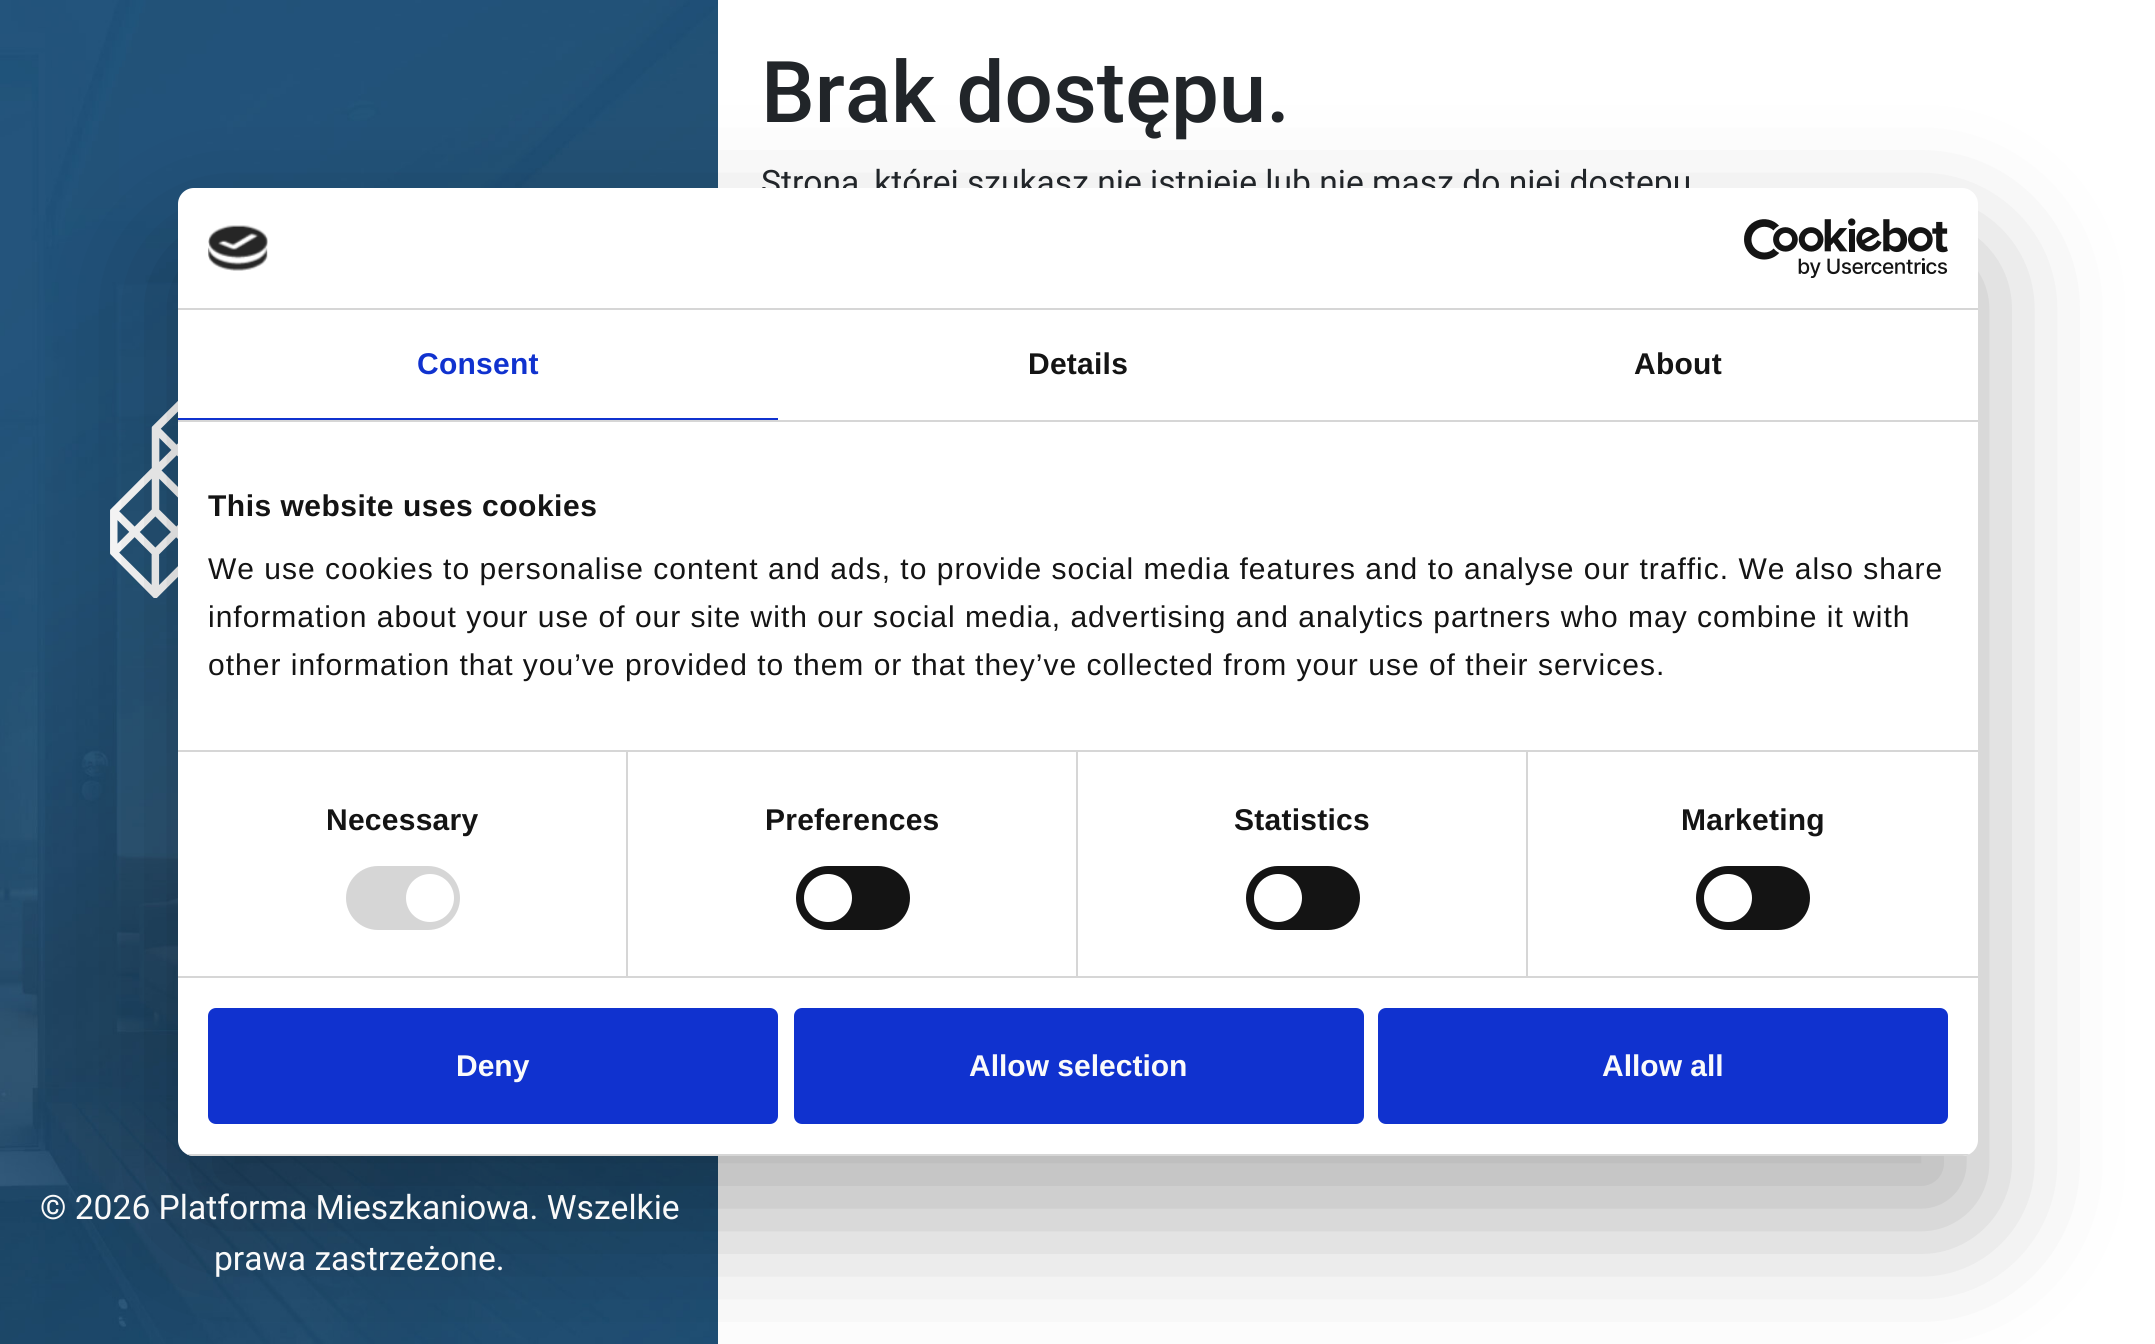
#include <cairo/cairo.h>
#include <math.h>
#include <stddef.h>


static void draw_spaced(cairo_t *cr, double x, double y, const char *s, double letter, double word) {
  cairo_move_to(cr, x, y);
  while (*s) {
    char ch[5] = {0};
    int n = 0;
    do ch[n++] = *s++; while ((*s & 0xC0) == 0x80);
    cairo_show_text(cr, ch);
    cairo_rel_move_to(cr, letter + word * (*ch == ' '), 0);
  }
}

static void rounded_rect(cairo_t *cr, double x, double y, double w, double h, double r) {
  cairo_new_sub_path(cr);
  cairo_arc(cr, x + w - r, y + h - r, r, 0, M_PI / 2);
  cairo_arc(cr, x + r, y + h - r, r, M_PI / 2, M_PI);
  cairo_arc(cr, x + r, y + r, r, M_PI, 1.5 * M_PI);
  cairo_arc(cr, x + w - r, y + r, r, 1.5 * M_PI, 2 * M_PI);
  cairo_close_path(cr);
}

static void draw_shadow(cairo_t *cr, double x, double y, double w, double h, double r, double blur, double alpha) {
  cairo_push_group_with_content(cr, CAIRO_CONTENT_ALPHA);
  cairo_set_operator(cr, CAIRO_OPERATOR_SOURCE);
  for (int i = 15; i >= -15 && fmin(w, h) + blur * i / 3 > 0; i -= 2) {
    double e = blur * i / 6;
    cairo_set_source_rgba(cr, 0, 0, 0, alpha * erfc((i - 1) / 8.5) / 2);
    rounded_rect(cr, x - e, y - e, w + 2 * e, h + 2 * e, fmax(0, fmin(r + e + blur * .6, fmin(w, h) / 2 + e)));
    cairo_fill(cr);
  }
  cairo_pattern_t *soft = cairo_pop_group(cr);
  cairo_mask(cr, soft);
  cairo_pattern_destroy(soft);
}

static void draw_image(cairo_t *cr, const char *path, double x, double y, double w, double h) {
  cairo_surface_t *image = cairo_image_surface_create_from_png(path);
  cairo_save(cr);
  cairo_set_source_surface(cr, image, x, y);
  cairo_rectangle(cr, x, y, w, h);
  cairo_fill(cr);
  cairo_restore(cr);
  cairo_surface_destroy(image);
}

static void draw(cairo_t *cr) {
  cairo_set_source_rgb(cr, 1, 1, 1);
  cairo_paint(cr);
  draw_image(cr, "images/1.png", 0, 0, 718, 1344);
  draw_image(cr, "images/2.png", 110, 401, 68, 197);
  cairo_set_source_rgb(cr, 0, 0, 0);
  draw_shadow(cr, 178, 252, 1800, 968, 16, 68, 0.3);
  cairo_select_font_face(cr, "Roboto Medium", CAIRO_FONT_SLANT_NORMAL, CAIRO_FONT_WEIGHT_NORMAL);
  cairo_set_font_size(cr, 85.25);
  cairo_set_source_rgb(cr, 33 / 255.0, 37 / 255.0, 41 / 255.0);
  cairo_move_to(cr, 761, 122);
  cairo_show_text(cr, "Brak dostępu.");
  cairo_select_font_face(cr, "Roboto", CAIRO_FONT_SLANT_NORMAL, CAIRO_FONT_WEIGHT_NORMAL);
  cairo_set_font_size(cr, 33.6);
  cairo_move_to(cr, 761, 194);
  cairo_show_text(cr, "Strona, której szukasz nie istnieje lub nie masz do niej dostępu");
  cairo_set_source_rgb(cr, 250 / 255.0, 250 / 255.0, 250 / 255.0);
  cairo_move_to(cr, 40, 1219);
  cairo_show_text(cr, "© 2026 Platforma Mieszkaniowa. Wszelkie");
  cairo_move_to(cr, 214, 1270);
  cairo_show_text(cr, "prawa zastrzeżone.");
  cairo_set_source_rgb(cr, 1, 1, 1);
  rounded_rect(cr, 178, 188, 1800, 968, 16);
  cairo_fill(cr);
  cairo_set_source_rgb(cr, 214 / 255.0, 214 / 255.0, 214 / 255.0);
  cairo_rectangle(cr, 178, 308, 1800, 2);
  cairo_fill(cr);
  draw_image(cr, "images/3.png", 208, 225, 60, 46);
  draw_image(cr, "images/4.png", 1744, 218, 204, 60);
  cairo_rectangle(cr, 178, 420, 1800, 2);
  cairo_fill(cr);
  cairo_set_source_rgb(cr, 16 / 255.0, 50 / 255.0, 207 / 255.0);
  cairo_rectangle(cr, 178, 418, 600, 2);
  cairo_fill(cr);
  cairo_select_font_face(cr, "Liberation Sans", CAIRO_FONT_SLANT_NORMAL, CAIRO_FONT_WEIGHT_BOLD);
  cairo_set_font_size(cr, 30);
  draw_spaced(cr, 417, 374, "Consent", 0.25, 0);
  cairo_set_source_rgb(cr, 20 / 255.0, 20 / 255.0, 20 / 255.0);
  draw_spaced(cr, 1028, 374, "Details", 0.25, 0);
  draw_spaced(cr, 1634, 374, "About", 0.25, 0);
  cairo_set_source_rgb(cr, 214 / 255.0, 214 / 255.0, 214 / 255.0);
  cairo_rectangle(cr, 178, 750, 1800, 2);
  cairo_fill(cr);
  cairo_set_source_rgb(cr, 20 / 255.0, 20 / 255.0, 20 / 255.0);
  draw_spaced(cr, 208, 516, "This website uses cookies", 0.5, 0);
  cairo_select_font_face(cr, "Liberation Sans", CAIRO_FONT_SLANT_NORMAL, CAIRO_FONT_WEIGHT_NORMAL);
  draw_spaced(cr, 208, 579, "We use cookies to personalise content and ads, to provide social media features and to analyse our traffic. We also share", 1, 0);
  draw_spaced(cr, 208, 627, "information about your use of our site with our social media, advertising and analytics partners who may combine it with", 1, 0);
  draw_spaced(cr, 208, 675, "other information that you’ve provided to them or that they’ve collected from your use of their services.", 1, 0);
  cairo_set_source_rgb(cr, 214 / 255.0, 214 / 255.0, 214 / 255.0);
  cairo_rectangle(cr, 178, 976, 1800, 2);
  cairo_fill(cr);
  cairo_rectangle(cr, 626, 752, 2, 224);
  cairo_fill(cr);
  cairo_select_font_face(cr, "Liberation Sans", CAIRO_FONT_SLANT_NORMAL, CAIRO_FONT_WEIGHT_BOLD);
  cairo_set_source_rgb(cr, 20 / 255.0, 20 / 255.0, 20 / 255.0);
  draw_spaced(cr, 326, 830, "Necessary", 0.25, 0);
  cairo_set_source_rgb(cr, 214 / 255.0, 214 / 255.0, 214 / 255.0);
  rounded_rect(cr, 346, 866, 114, 64, 32);
  cairo_fill(cr);
  cairo_set_source_rgb(cr, 1, 1, 1);
  cairo_arc(cr, 430, 898, 24, 0, 2 * M_PI);
  cairo_fill(cr);
  cairo_set_source_rgb(cr, 214 / 255.0, 214 / 255.0, 214 / 255.0);
  cairo_rectangle(cr, 1076, 752, 2, 224);
  cairo_fill(cr);
  cairo_set_source_rgb(cr, 20 / 255.0, 20 / 255.0, 20 / 255.0);
  draw_spaced(cr, 765, 830, "Preferences", 0.25, 0);
  rounded_rect(cr, 796, 866, 114, 64, 32);
  cairo_fill(cr);
  cairo_set_source_rgb(cr, 1, 1, 1);
  cairo_arc(cr, 828, 898, 24, 0, 2 * M_PI);
  cairo_fill(cr);
  cairo_set_source_rgb(cr, 214 / 255.0, 214 / 255.0, 214 / 255.0);
  cairo_rectangle(cr, 1526, 752, 2, 224);
  cairo_fill(cr);
  cairo_set_source_rgb(cr, 20 / 255.0, 20 / 255.0, 20 / 255.0);
  draw_spaced(cr, 1234, 830, "Statistics", 0.25, 0);
  rounded_rect(cr, 1246, 866, 114, 64, 32);
  cairo_fill(cr);
  cairo_set_source_rgb(cr, 1, 1, 1);
  cairo_arc(cr, 1278, 898, 24, 0, 2 * M_PI);
  cairo_fill(cr);
  cairo_set_source_rgb(cr, 20 / 255.0, 20 / 255.0, 20 / 255.0);
  draw_spaced(cr, 1681, 830, "Marketing", 0.25, 0);
  rounded_rect(cr, 1696, 866, 114, 64, 32);
  cairo_fill(cr);
  cairo_set_source_rgb(cr, 1, 1, 1);
  cairo_arc(cr, 1728, 898, 24, 0, 2 * M_PI);
  cairo_fill(cr);
  cairo_save(cr);
  rounded_rect(cr, 178, 188, 1800, 968, 16);
  cairo_clip(cr);
  cairo_set_source_rgb(cr, 214 / 255.0, 214 / 255.0, 214 / 255.0);
  cairo_rectangle(cr, 178, 1154, 1800, 2);
  cairo_fill(cr);
  cairo_restore(cr);
  cairo_set_source_rgb(cr, 16 / 255.0, 50 / 255.0, 207 / 255.0);
  rounded_rect(cr, 210, 1010, 566, 112, 6);
  cairo_fill_preserve(cr);
  cairo_set_line_width(cr, 4);
  cairo_stroke(cr);
  cairo_set_source_rgb(cr, 250 / 255.0, 250 / 255.0, 250 / 255.0);
  cairo_move_to(cr, 456, 1076);
  cairo_show_text(cr, "Deny");
  cairo_set_source_rgb(cr, 16 / 255.0, 50 / 255.0, 207 / 255.0);
  rounded_rect(cr, 796, 1010, 566, 112, 6);
  cairo_fill_preserve(cr);
  cairo_stroke(cr);
  cairo_set_source_rgb(cr, 250 / 255.0, 250 / 255.0, 250 / 255.0);
  cairo_move_to(cr, 969, 1076);
  cairo_show_text(cr, "Allow selection");
  cairo_set_source_rgb(cr, 16 / 255.0, 50 / 255.0, 207 / 255.0);
  rounded_rect(cr, 1380, 1010, 566, 112, 6);
  cairo_fill_preserve(cr);
  cairo_stroke(cr);
  cairo_set_source_rgb(cr, 250 / 255.0, 250 / 255.0, 250 / 255.0);
  cairo_move_to(cr, 1602, 1076);
  cairo_show_text(cr, "Allow all");
}

int main(void) {
  cairo_surface_t *surface = cairo_image_surface_create(CAIRO_FORMAT_RGB24, 2155, 1344);
  cairo_t *cr = cairo_create(surface);
  cairo_font_options_t *options = cairo_font_options_create();
  cairo_font_options_set_hint_metrics(options, CAIRO_HINT_METRICS_OFF);
  cairo_font_options_set_hint_style(options, CAIRO_HINT_STYLE_NONE);
  cairo_set_font_options(cr, options);
  cairo_set_miter_limit(cr, 4);
  draw(cr);
  cairo_surface_write_to_png(surface, "out.png");
  cairo_font_options_destroy(options);
  cairo_destroy(cr);
  cairo_surface_destroy(surface);
  return 0;
}
